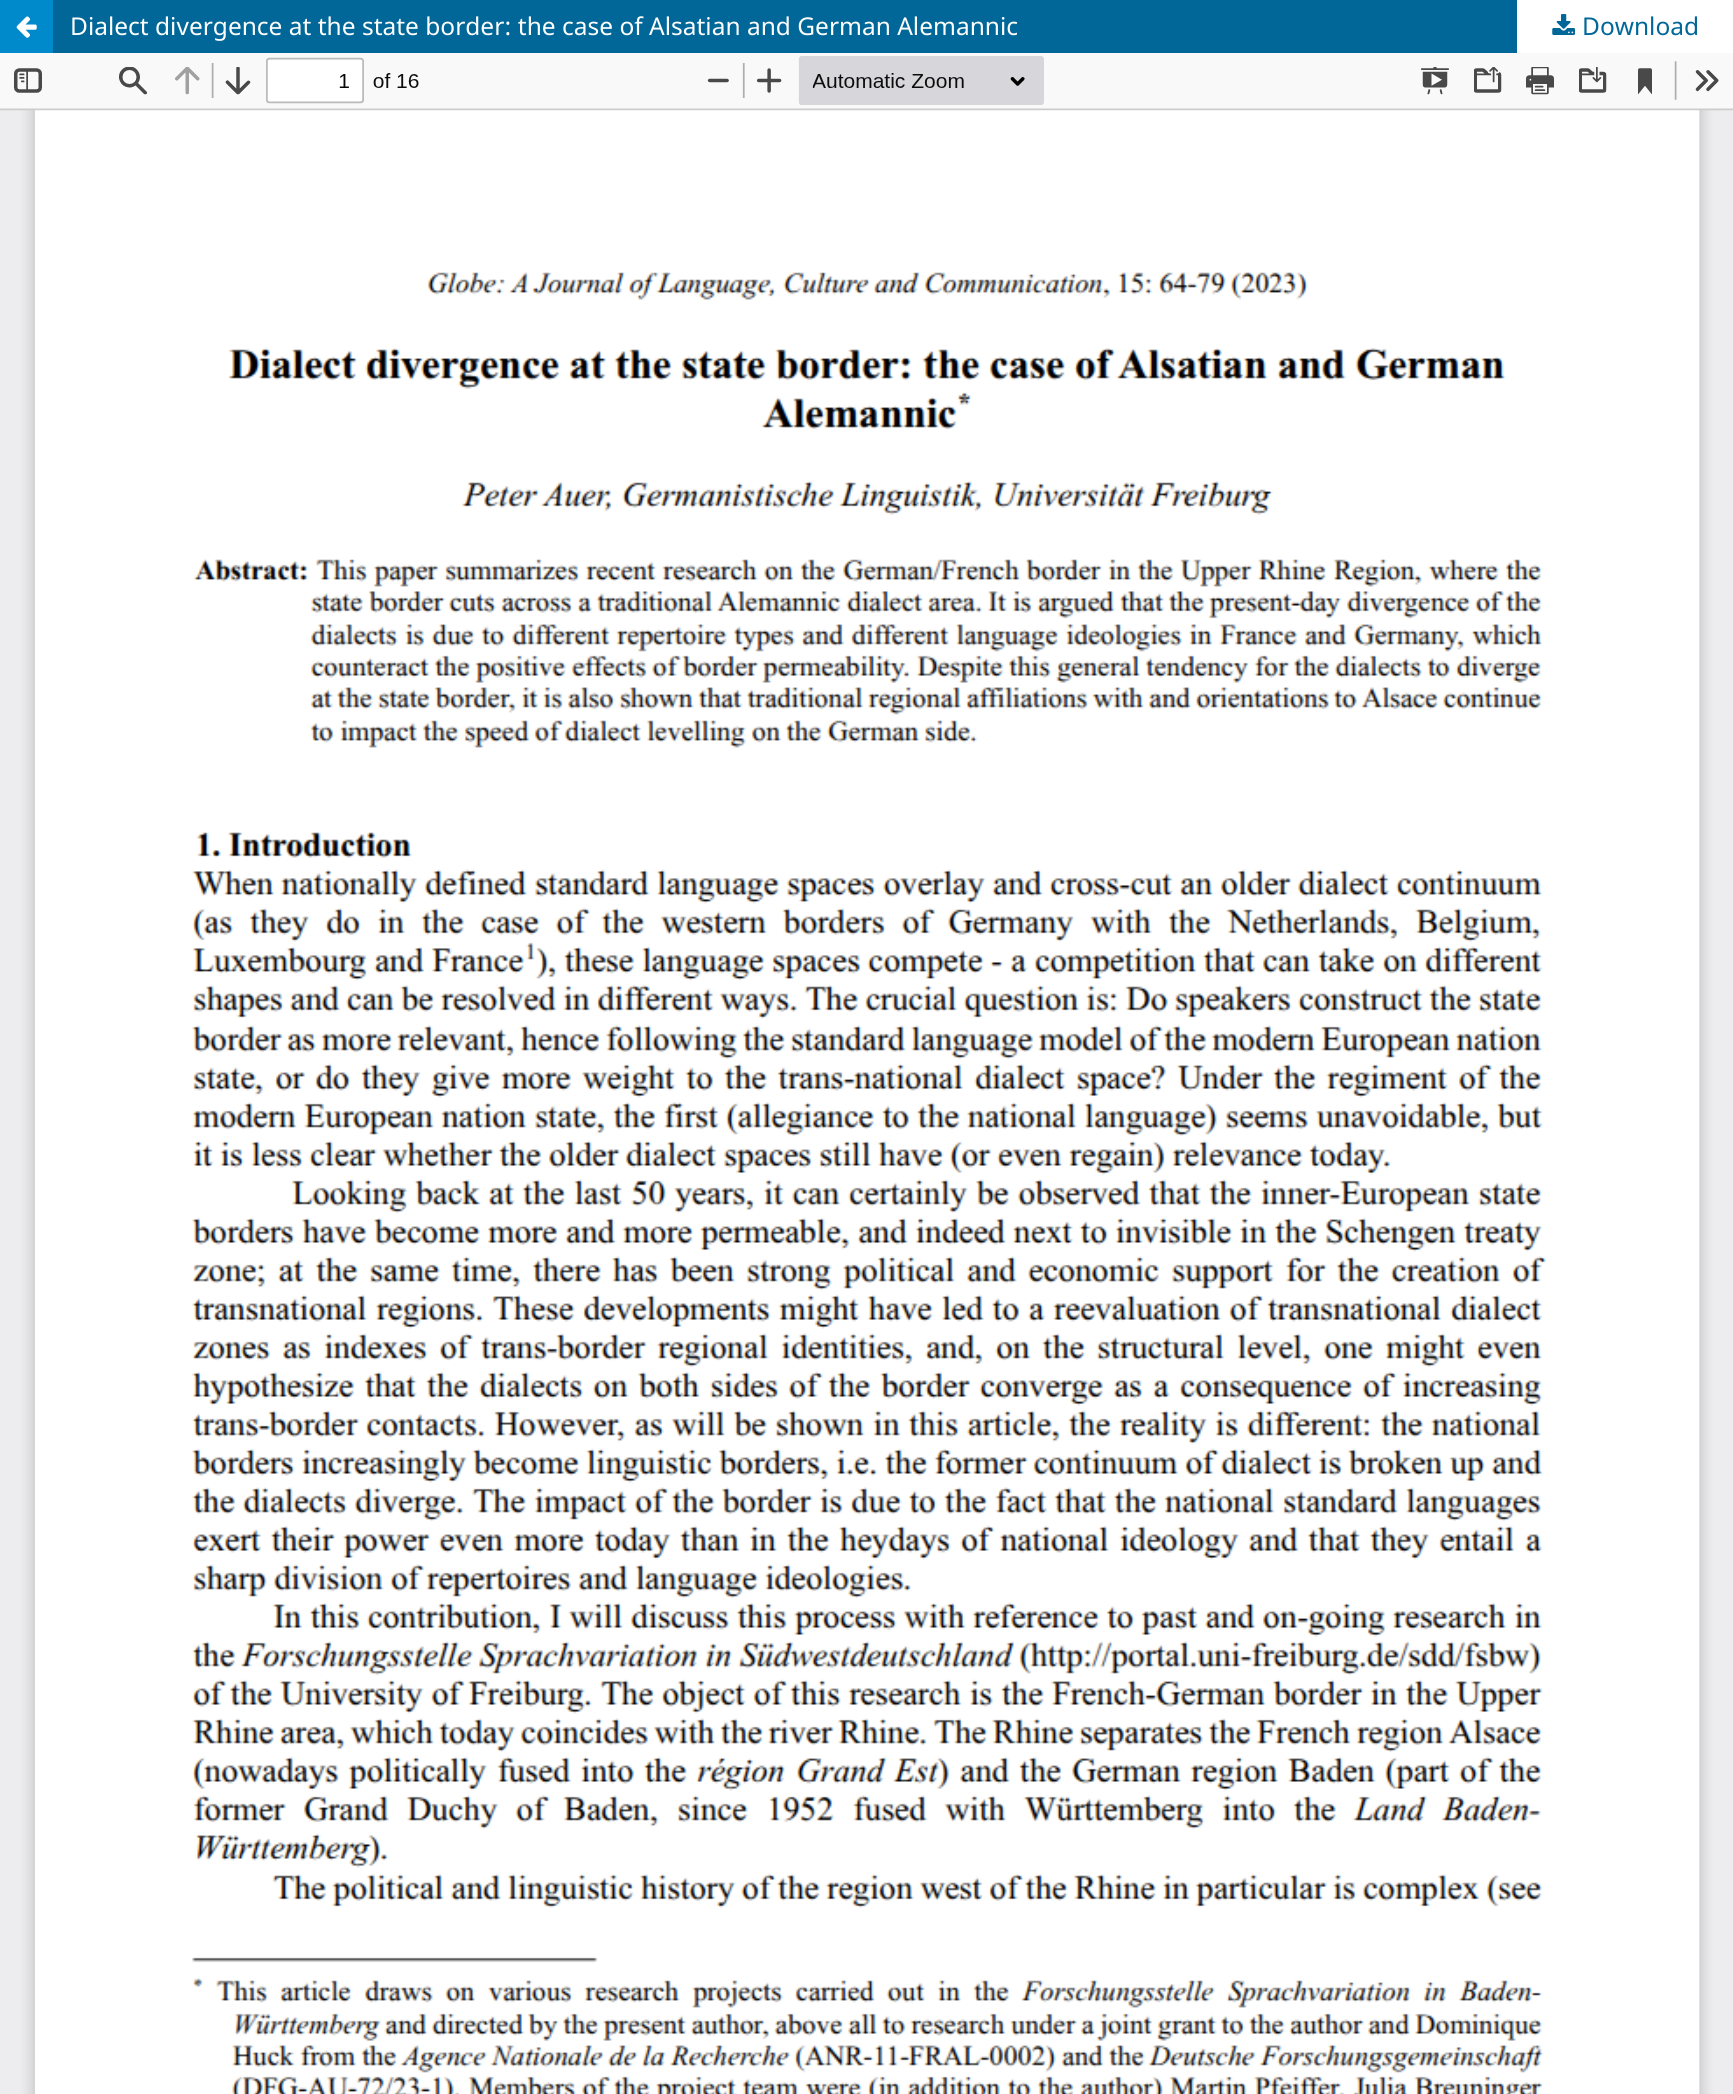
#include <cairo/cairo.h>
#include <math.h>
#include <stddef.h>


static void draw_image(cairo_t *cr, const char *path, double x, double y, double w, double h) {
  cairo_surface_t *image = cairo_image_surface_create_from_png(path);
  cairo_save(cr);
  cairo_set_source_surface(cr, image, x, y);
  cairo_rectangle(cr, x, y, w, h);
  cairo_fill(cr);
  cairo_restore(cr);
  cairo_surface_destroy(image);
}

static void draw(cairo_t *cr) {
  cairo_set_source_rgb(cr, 1, 1, 1);
  cairo_paint(cr);
  cairo_set_source_rgb(cr, 0, 103 / 255.0, 152 / 255.0);
  cairo_rectangle(cr, 53, 0, 1464, 53);
  cairo_fill(cr);
  cairo_set_source_rgb(cr, 0, 138 / 255.0, 203 / 255.0);
  cairo_rectangle(cr, 0, 0, 53, 53);
  cairo_fill(cr);
  draw_image(cr, "images/1.png", 16, 16, 21, 22);
  draw_image(cr, "images/2.png", 1552, 14, 23, 21);
  draw_image(cr, "images/3.png", 0, 53, 1733, 2041);
  cairo_select_font_face(cr, "Noto Sans", CAIRO_FONT_SLANT_NORMAL, CAIRO_FONT_WEIGHT_NORMAL);
  cairo_set_font_size(cr, 24.5);
  cairo_set_source_rgb(cr, 1, 1, 1);
  cairo_move_to(cr, 70, 35);
  cairo_show_text(cr, "Dialect divergence at the state border: the case of Alsatian and German Alemannic");
  cairo_set_source_rgb(cr, 0, 103 / 255.0, 152 / 255.0);
  cairo_move_to(cr, 1582, 35);
  cairo_show_text(cr, "Download");
}

int main(void) {
  cairo_surface_t *surface = cairo_image_surface_create(CAIRO_FORMAT_RGB24, 1733, 2094);
  cairo_t *cr = cairo_create(surface);
  cairo_font_options_t *options = cairo_font_options_create();
  cairo_font_options_set_hint_metrics(options, CAIRO_HINT_METRICS_OFF);
  cairo_font_options_set_hint_style(options, CAIRO_HINT_STYLE_NONE);
  cairo_set_font_options(cr, options);
  cairo_set_miter_limit(cr, 4);
  draw(cr);
  cairo_surface_write_to_png(surface, "out.png");
  cairo_font_options_destroy(options);
  cairo_destroy(cr);
  cairo_surface_destroy(surface);
  return 0;
}
